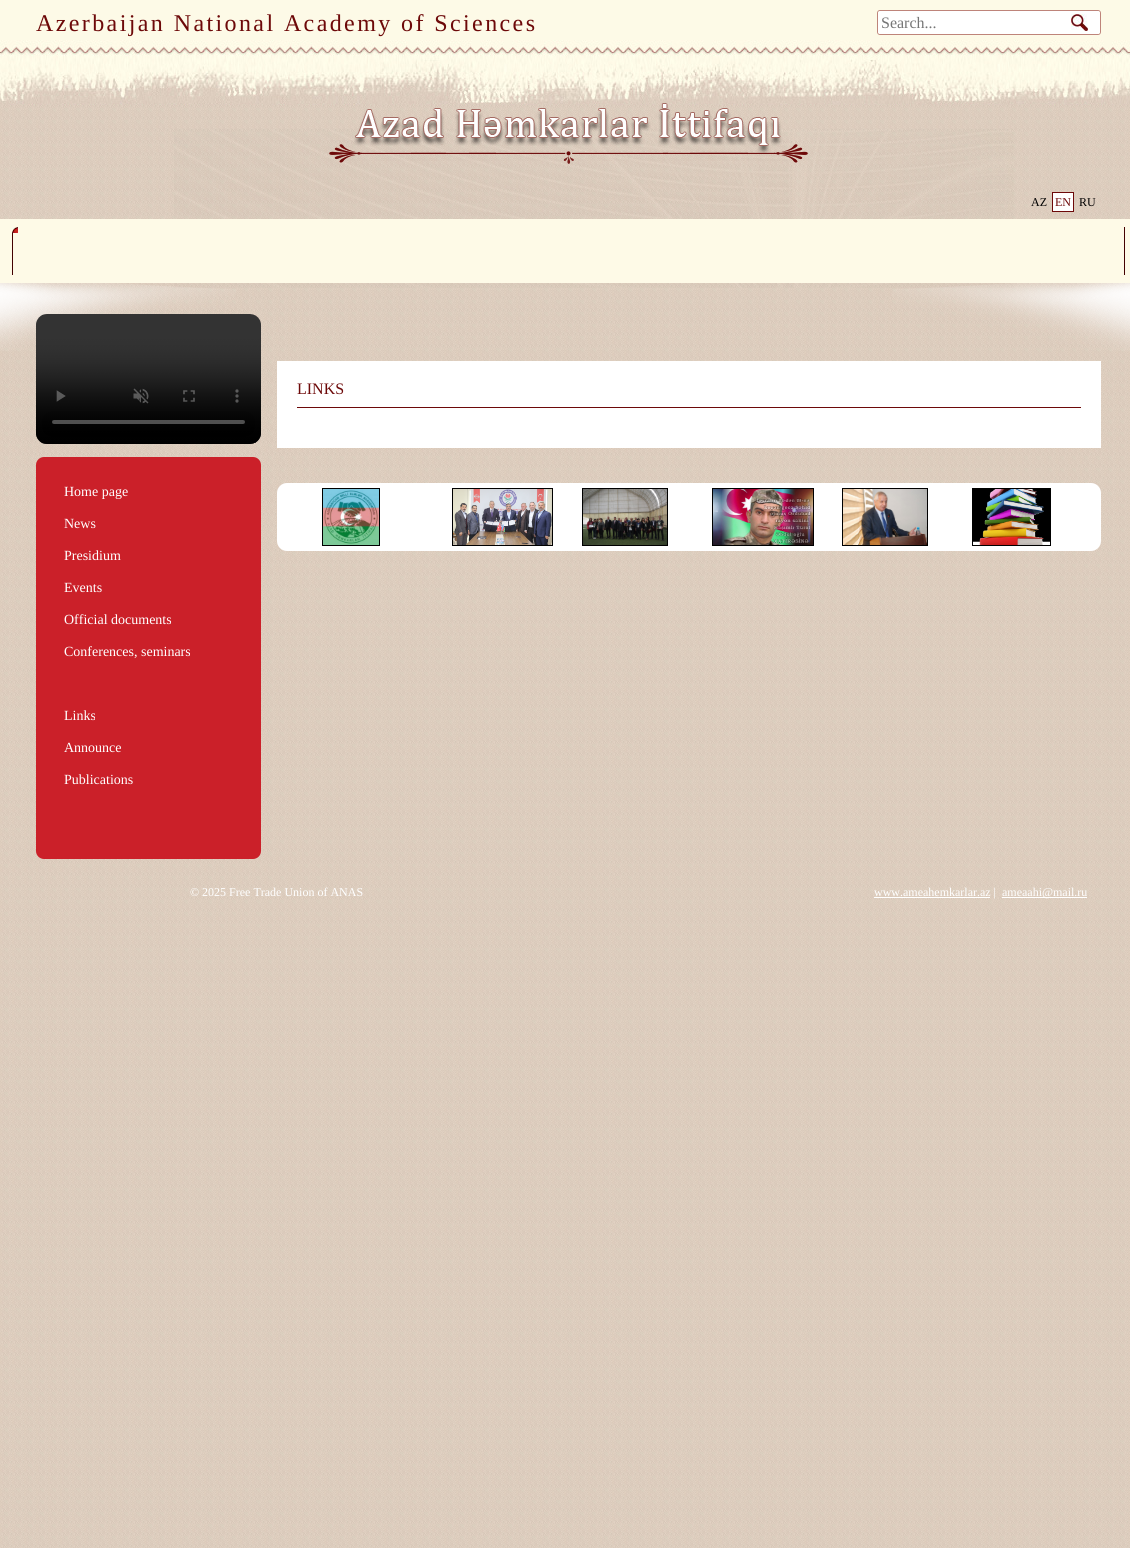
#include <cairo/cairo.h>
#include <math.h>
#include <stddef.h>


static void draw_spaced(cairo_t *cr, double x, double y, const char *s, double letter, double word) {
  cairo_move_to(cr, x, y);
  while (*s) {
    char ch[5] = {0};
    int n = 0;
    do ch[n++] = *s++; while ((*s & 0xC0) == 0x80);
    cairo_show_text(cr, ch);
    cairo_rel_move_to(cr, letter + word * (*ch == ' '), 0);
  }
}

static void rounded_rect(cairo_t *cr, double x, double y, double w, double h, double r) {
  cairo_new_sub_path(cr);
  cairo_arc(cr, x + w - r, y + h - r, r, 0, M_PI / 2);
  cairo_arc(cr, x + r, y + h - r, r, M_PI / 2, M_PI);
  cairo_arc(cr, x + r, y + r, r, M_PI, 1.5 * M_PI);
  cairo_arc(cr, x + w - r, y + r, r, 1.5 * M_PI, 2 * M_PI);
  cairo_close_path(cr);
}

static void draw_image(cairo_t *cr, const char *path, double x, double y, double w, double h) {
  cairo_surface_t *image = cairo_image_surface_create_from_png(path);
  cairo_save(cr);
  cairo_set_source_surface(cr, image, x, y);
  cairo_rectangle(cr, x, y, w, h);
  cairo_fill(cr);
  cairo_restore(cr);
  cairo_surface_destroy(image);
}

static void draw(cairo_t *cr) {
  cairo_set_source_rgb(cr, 1, 1, 1);
  cairo_paint(cr);
  draw_image(cr, "images/1.png", 0, 105, 1130, 1443);
  draw_image(cr, "images/2.png", 0, 0, 1130, 105);
  draw_image(cr, "images/14.png", 0, 283, 236, 68);
  draw_image(cr, "images/15.png", 892, 283, 238, 68);
  draw_image(cr, "images/3.png", 174, 129, 840, 159);
  rounded_rect(cr, 877.5, 10.5, 223, 24, 2.5);
  cairo_set_source_rgb(cr, 190 / 255.0, 132 / 255.0, 122 / 255.0);
  cairo_set_line_width(cr, 1);
  cairo_stroke(cr);
  cairo_set_source_rgb(cr, 1, 1, 1);
  cairo_new_path(cr);
  cairo_move_to(cr, 880, 11);
  cairo_line_to(cr, 1071, 11);
  cairo_line_to(cr, 1071, 34);
  cairo_line_to(cr, 880, 34);
  cairo_curve_to(cr, 879, 34, 878, 33, 878, 32);
  cairo_line_to(cr, 878, 13);
  cairo_curve_to(cr, 878, 12, 879, 11, 880, 11);
  cairo_close_path(cr);
  cairo_fill(cr);
  cairo_new_path(cr);
  cairo_move_to(cr, 1071, 11);
  cairo_line_to(cr, 1098, 11);
  cairo_curve_to(cr, 1099, 11, 1100, 12, 1100, 13);
  cairo_line_to(cr, 1100, 32);
  cairo_curve_to(cr, 1100, 33, 1099, 34, 1098, 34);
  cairo_line_to(cr, 1071, 34);
  cairo_close_path(cr);
  cairo_fill(cr);
  draw_image(cr, "images/4.png", 1071, 14, 17, 17);
  draw_image(cr, "images/5.png", 329, 103, 479, 61);
  cairo_rectangle(cr, 1052.5, 192.5, 21, 19);
  cairo_fill_preserve(cr);
  cairo_set_source_rgb(cr, 109 / 255.0, 9 / 255.0, 9 / 255.0);
  cairo_stroke(cr);
  cairo_set_source_rgb(cr, 254 / 255.0, 250 / 255.0, 231 / 255.0);
  cairo_rectangle(cr, 0, 219, 1130, 64);
  cairo_fill(cr);
  cairo_set_source_rgb(cr, 67 / 255.0, 1 / 255.0, 1 / 255.0);
  cairo_rectangle(cr, 1124, 227, 1, 48);
  cairo_fill(cr);
  cairo_rectangle(cr, 12, 227, 1, 48);
  cairo_fill(cr);
  draw_image(cr, "images/6.png", 12, 227, 6, 6);
  cairo_set_source_rgb(cr, 1, 1, 1);
  cairo_rectangle(cr, 277, 361, 824, 87);
  cairo_fill(cr);
  cairo_set_source_rgb(cr, 109 / 255.0, 9 / 255.0, 9 / 255.0);
  cairo_rectangle(cr, 297, 407, 784, 1);
  cairo_fill(cr);
  cairo_set_source_rgb(cr, 1, 1, 1);
  rounded_rect(cr, 277, 483, 824, 68, 10);
  cairo_fill(cr);
  cairo_rectangle(cr, 322.5, 488.5, 57, 57);
  cairo_set_source_rgb(cr, 0, 0, 0);
  cairo_stroke(cr);
  draw_image(cr, "images/7.png", 323, 489, 56, 56);
  cairo_rectangle(cr, 452.5, 488.5, 100, 57);
  cairo_stroke(cr);
  draw_image(cr, "images/8.png", 453, 489, 99, 56);
  cairo_rectangle(cr, 582.5, 488.5, 85, 57);
  cairo_stroke(cr);
  draw_image(cr, "images/9.png", 583, 489, 84, 56);
  cairo_rectangle(cr, 712.5, 488.5, 101, 57);
  cairo_stroke(cr);
  draw_image(cr, "images/10.png", 713, 489, 100, 56);
  cairo_rectangle(cr, 842.5, 488.5, 85, 57);
  cairo_stroke(cr);
  draw_image(cr, "images/11.png", 843, 489, 84, 56);
  cairo_rectangle(cr, 972.5, 488.5, 78, 57);
  cairo_stroke(cr);
  draw_image(cr, "images/12.png", 973, 489, 77, 56);
  draw_image(cr, "images/13.png", 36, 314, 225, 130);
  cairo_set_source_rgb(cr, 203 / 255.0, 32 / 255.0, 41 / 255.0);
  rounded_rect(cr, 36, 457, 225, 402, 8);
  cairo_fill(cr);
  cairo_set_source_rgb(cr, 1, 1, 1);
  cairo_rectangle(cr, 874, 897, 116, 1);
  cairo_fill(cr);
  cairo_rectangle(cr, 1002, 897, 85, 1);
  cairo_fill(cr);
  cairo_select_font_face(cr, "Liberation Serif", CAIRO_FONT_SLANT_NORMAL, CAIRO_FONT_WEIGHT_NORMAL);
  cairo_set_font_size(cr, 24);
  cairo_set_source_rgb(cr, 109 / 255.0, 9 / 255.0, 9 / 255.0);
  draw_spaced(cr, 36, 31, "Azerbaijan National Academy of Sciences", 2.4, 0);
  cairo_set_font_size(cr, 16);
  cairo_set_source_rgb(cr, 117 / 255.0, 117 / 255.0, 117 / 255.0);
  cairo_move_to(cr, 881, 28);
  cairo_show_text(cr, "Search...");
  cairo_set_font_size(cr, 12);
  cairo_set_source_rgb(cr, 0, 0, 0);
  cairo_move_to(cr, 1031, 206);
  cairo_show_text(cr, "AZ");
  cairo_set_source_rgb(cr, 109 / 255.0, 9 / 255.0, 9 / 255.0);
  cairo_move_to(cr, 1055, 206);
  cairo_show_text(cr, "EN");
  cairo_set_source_rgb(cr, 0, 0, 0);
  cairo_move_to(cr, 1079, 206);
  cairo_show_text(cr, "RU");
  cairo_set_font_size(cr, 16);
  cairo_set_source_rgb(cr, 109 / 255.0, 9 / 255.0, 9 / 255.0);
  cairo_move_to(cr, 297, 394);
  cairo_show_text(cr, "LINKS");
  cairo_set_font_size(cr, 14);
  cairo_set_source_rgb(cr, 1, 1, 1);
  cairo_move_to(cr, 64, 496);
  cairo_show_text(cr, "Home page");
  cairo_move_to(cr, 64, 528);
  cairo_show_text(cr, "News");
  cairo_move_to(cr, 64, 560);
  cairo_show_text(cr, "Presidium");
  cairo_move_to(cr, 64, 592);
  cairo_show_text(cr, "Events");
  cairo_move_to(cr, 64, 624);
  cairo_show_text(cr, "Official documents");
  cairo_move_to(cr, 64, 656);
  cairo_show_text(cr, "Conferences, seminars");
  cairo_move_to(cr, 64, 720);
  cairo_show_text(cr, "Links");
  cairo_move_to(cr, 64, 752);
  cairo_show_text(cr, "Announce");
  cairo_move_to(cr, 64, 784);
  cairo_show_text(cr, "Publications");
  cairo_set_font_size(cr, 12);
  cairo_move_to(cr, 190, 896);
  cairo_show_text(cr, "© 2025 Free Trade Union of ANAS");
  cairo_move_to(cr, 874, 896);
  cairo_show_text(cr, "www.ameahemkarlar.az |");
  cairo_move_to(cr, 1002, 896);
  cairo_show_text(cr, "ameaahi@mail.ru");
}

int main(void) {
  cairo_surface_t *surface = cairo_image_surface_create(CAIRO_FORMAT_RGB24, 1130, 1548);
  cairo_t *cr = cairo_create(surface);
  cairo_font_options_t *options = cairo_font_options_create();
  cairo_font_options_set_hint_metrics(options, CAIRO_HINT_METRICS_OFF);
  cairo_font_options_set_hint_style(options, CAIRO_HINT_STYLE_NONE);
  cairo_set_font_options(cr, options);
  cairo_set_miter_limit(cr, 4);
  draw(cr);
  cairo_surface_write_to_png(surface, "out.png");
  cairo_font_options_destroy(options);
  cairo_destroy(cr);
  cairo_surface_destroy(surface);
  return 0;
}
